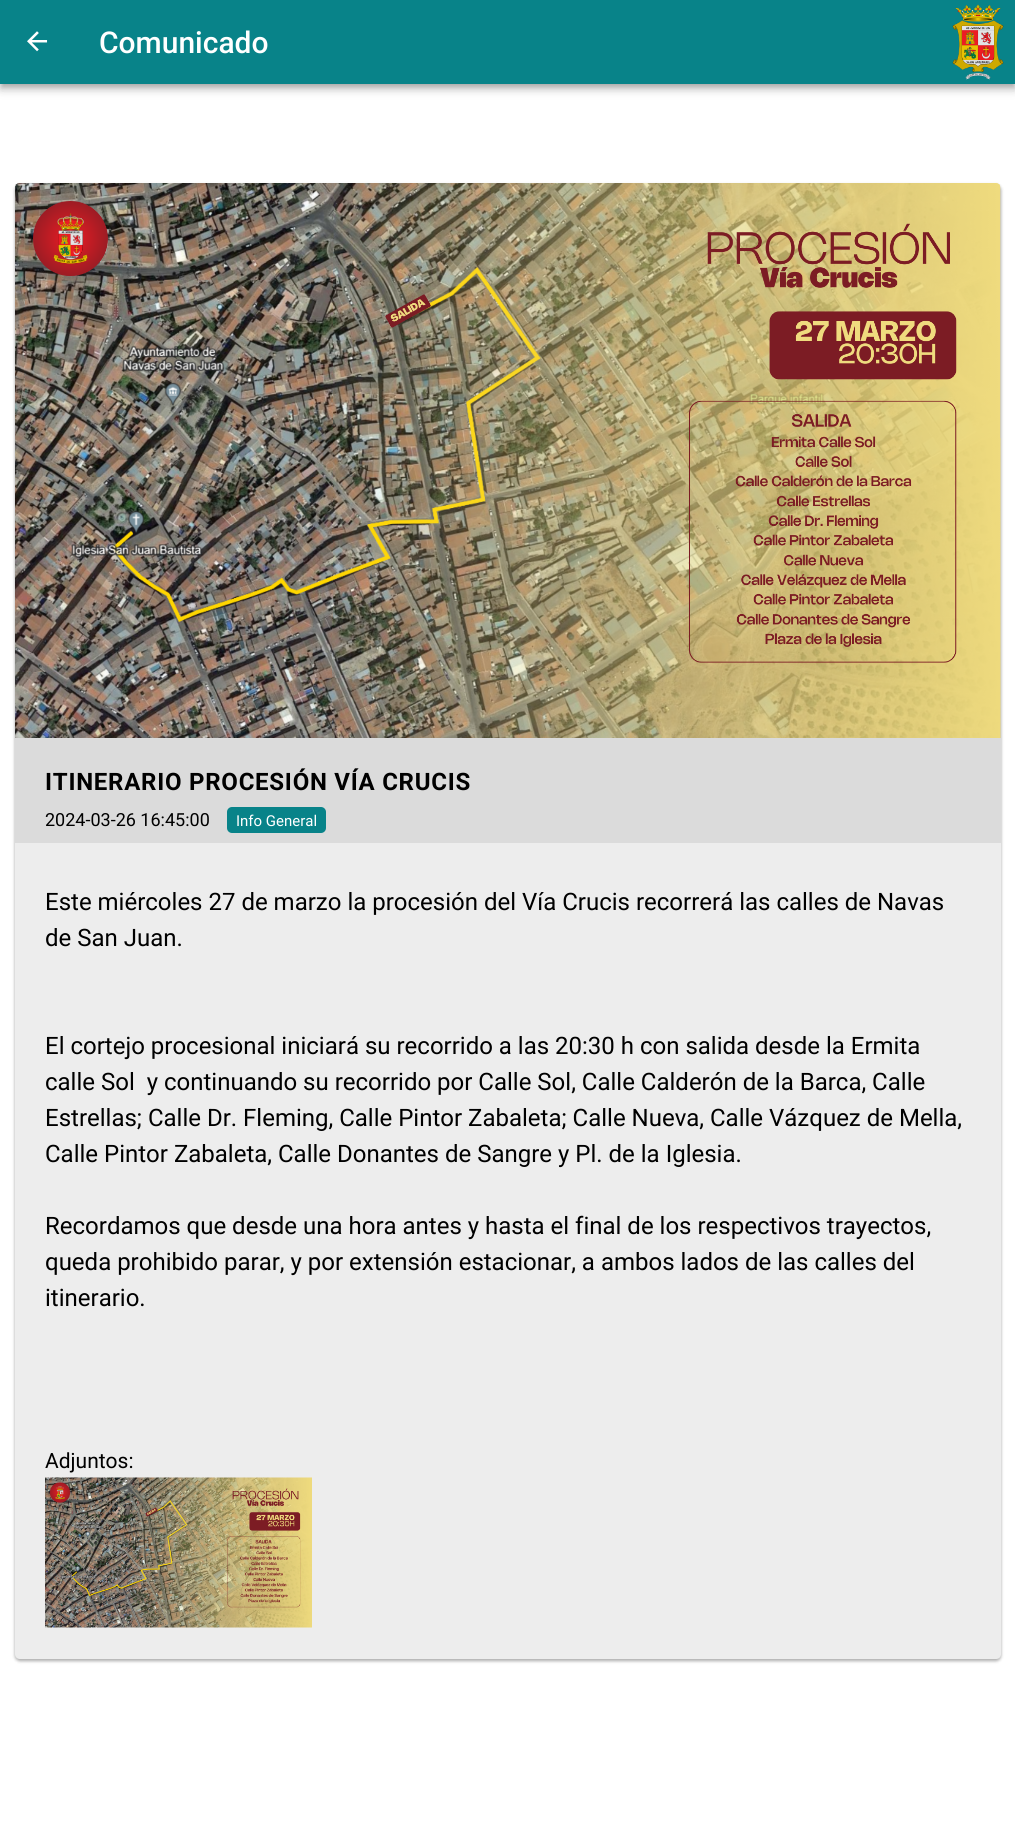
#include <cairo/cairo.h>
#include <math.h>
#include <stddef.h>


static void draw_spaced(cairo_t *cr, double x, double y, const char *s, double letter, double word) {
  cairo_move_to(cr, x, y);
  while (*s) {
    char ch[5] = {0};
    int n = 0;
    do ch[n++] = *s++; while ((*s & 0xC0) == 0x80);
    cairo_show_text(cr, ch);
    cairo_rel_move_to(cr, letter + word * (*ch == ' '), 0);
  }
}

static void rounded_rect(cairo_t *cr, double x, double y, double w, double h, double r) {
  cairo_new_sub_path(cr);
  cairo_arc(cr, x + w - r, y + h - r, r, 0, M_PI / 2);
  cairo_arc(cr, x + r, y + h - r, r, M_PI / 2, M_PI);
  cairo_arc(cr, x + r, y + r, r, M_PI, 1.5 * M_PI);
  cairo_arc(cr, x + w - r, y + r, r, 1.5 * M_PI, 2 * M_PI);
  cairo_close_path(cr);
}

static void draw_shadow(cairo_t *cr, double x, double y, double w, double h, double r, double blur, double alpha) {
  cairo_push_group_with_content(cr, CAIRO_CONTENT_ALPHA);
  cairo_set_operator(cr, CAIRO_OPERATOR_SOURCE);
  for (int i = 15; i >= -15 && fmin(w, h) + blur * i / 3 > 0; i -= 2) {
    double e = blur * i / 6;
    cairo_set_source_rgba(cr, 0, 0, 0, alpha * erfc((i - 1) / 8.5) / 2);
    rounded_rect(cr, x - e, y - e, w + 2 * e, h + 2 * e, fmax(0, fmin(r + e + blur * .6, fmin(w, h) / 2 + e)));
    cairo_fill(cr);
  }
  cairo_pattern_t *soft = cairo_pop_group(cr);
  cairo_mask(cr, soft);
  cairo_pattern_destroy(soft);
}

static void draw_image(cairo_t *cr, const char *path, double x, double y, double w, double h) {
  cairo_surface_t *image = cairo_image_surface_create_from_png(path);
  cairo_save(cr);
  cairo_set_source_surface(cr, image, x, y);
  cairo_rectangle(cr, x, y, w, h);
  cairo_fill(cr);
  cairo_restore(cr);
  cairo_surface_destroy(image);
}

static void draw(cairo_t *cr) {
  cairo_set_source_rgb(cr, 1, 1, 1);
  cairo_paint(cr);
  cairo_set_source_rgb(cr, 0, 0, 0);
  draw_shadow(cr, 0, 2, 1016, 84, 0, 7.5, 0.12);
  draw_shadow(cr, 0, 6, 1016, 84, 0, 4, 0.14);
  draw_shadow(cr, 2, 5, 1012, 81, 0, 3, 0.2);
  cairo_set_source_rgb(cr, 8 / 255.0, 131 / 255.0, 137 / 255.0);
  cairo_rectangle(cr, 0, 0, 1015, 84);
  cairo_fill(cr);
  draw_image(cr, "images/1.png", 27, 31, 21, 21);
  draw_image(cr, "images/2.png", 952, 4, 52, 76);
  cairo_set_source_rgb(cr, 0, 0, 0);
  draw_shadow(cr, 15, 185, 986, 1476, 5, 1.5, 0.24);
  draw_shadow(cr, 15, 185, 986, 1476, 5, 2, 0.12);
  draw_image(cr, "images/3.png", 15, 183, 986, 555);
  cairo_set_source_rgb(cr, 237 / 255.0, 237 / 255.0, 237 / 255.0);
  cairo_new_path(cr);
  cairo_move_to(cr, 15, 738);
  cairo_line_to(cr, 1001, 738);
  cairo_line_to(cr, 1001, 1654);
  cairo_curve_to(cr, 1001, 1657, 999, 1659, 996, 1659);
  cairo_line_to(cr, 20, 1659);
  cairo_curve_to(cr, 17, 1659, 15, 1657, 15, 1654);
  cairo_close_path(cr);
  cairo_fill(cr);
  cairo_set_source_rgb(cr, 219 / 255.0, 219 / 255.0, 219 / 255.0);
  cairo_rectangle(cr, 15, 738, 986, 105);
  cairo_fill(cr);
  cairo_set_source_rgb(cr, 8 / 255.0, 131 / 255.0, 137 / 255.0);
  rounded_rect(cr, 227, 807, 99, 26, 5);
  cairo_fill(cr);
  draw_image(cr, "images/4.png", 45, 1477, 267, 151);
  cairo_select_font_face(cr, "Roboto Medium", CAIRO_FONT_SLANT_NORMAL, CAIRO_FONT_WEIGHT_NORMAL);
  cairo_set_font_size(cr, 30);
  cairo_set_source_rgb(cr, 1, 1, 1);
  cairo_move_to(cr, 99, 53);
  cairo_show_text(cr, "Comunicado");
  cairo_select_font_face(cr, "Roboto", CAIRO_FONT_SLANT_NORMAL, CAIRO_FONT_WEIGHT_BOLD);
  cairo_set_font_size(cr, 24);
  cairo_set_source_rgb(cr, 0, 0, 0);
  draw_spaced(cr, 45, 790, "ITINERARIO PROCESIÓN VÍA CRUCIS", 0.75, 0);
  cairo_select_font_face(cr, "Roboto", CAIRO_FONT_SLANT_NORMAL, CAIRO_FONT_WEIGHT_NORMAL);
  cairo_set_font_size(cr, 18);
  cairo_move_to(cr, 45, 826);
  cairo_show_text(cr, "2024-03-26 16:45:00");
  cairo_set_font_size(cr, 15);
  cairo_set_source_rgb(cr, 1, 1, 1);
  cairo_move_to(cr, 236, 826);
  cairo_show_text(cr, "Info General");
  cairo_set_font_size(cr, 24);
  cairo_set_source_rgb(cr, 0, 0, 0);
  cairo_move_to(cr, 45, 910);
  cairo_show_text(cr, "Este miércoles 27 de marzo la procesión del Vía Crucis recorrerá las calles de Navas");
  cairo_move_to(cr, 45, 946);
  cairo_show_text(cr, "de San Juan.");
  cairo_move_to(cr, 45, 1054);
  cairo_show_text(cr, "El cortejo procesional iniciará su recorrido a las 20:30 h con salida desde la Ermita");
  cairo_move_to(cr, 45, 1090);
  cairo_show_text(cr, "calle Sol  y continuando su recorrido por Calle Sol, Calle Calderón de la Barca, Calle");
  cairo_move_to(cr, 45, 1126);
  cairo_show_text(cr, "Estrellas; Calle Dr. Fleming, Calle Pintor Zabaleta; Calle Nueva, Calle Vázquez de Mella,");
  cairo_move_to(cr, 45, 1162);
  cairo_show_text(cr, "Calle Pintor Zabaleta, Calle Donantes de Sangre y Pl. de la Iglesia.");
  cairo_move_to(cr, 45, 1234);
  cairo_show_text(cr, "Recordamos que desde una hora antes y hasta el final de los respectivos trayectos,");
  cairo_move_to(cr, 45, 1270);
  cairo_show_text(cr, "queda prohibido parar, y por extensión estacionar, a ambos lados de las calles del");
  cairo_move_to(cr, 45, 1306);
  cairo_show_text(cr, "itinerario.");
  cairo_set_font_size(cr, 21);
  cairo_move_to(cr, 45, 1468);
  cairo_show_text(cr, "Adjuntos:");
}

int main(void) {
  cairo_surface_t *surface = cairo_image_surface_create(CAIRO_FORMAT_RGB24, 1015, 1833);
  cairo_t *cr = cairo_create(surface);
  cairo_font_options_t *options = cairo_font_options_create();
  cairo_font_options_set_hint_metrics(options, CAIRO_HINT_METRICS_OFF);
  cairo_font_options_set_hint_style(options, CAIRO_HINT_STYLE_NONE);
  cairo_set_font_options(cr, options);
  cairo_set_miter_limit(cr, 4);
  draw(cr);
  cairo_surface_write_to_png(surface, "out.png");
  cairo_font_options_destroy(options);
  cairo_destroy(cr);
  cairo_surface_destroy(surface);
  return 0;
}
